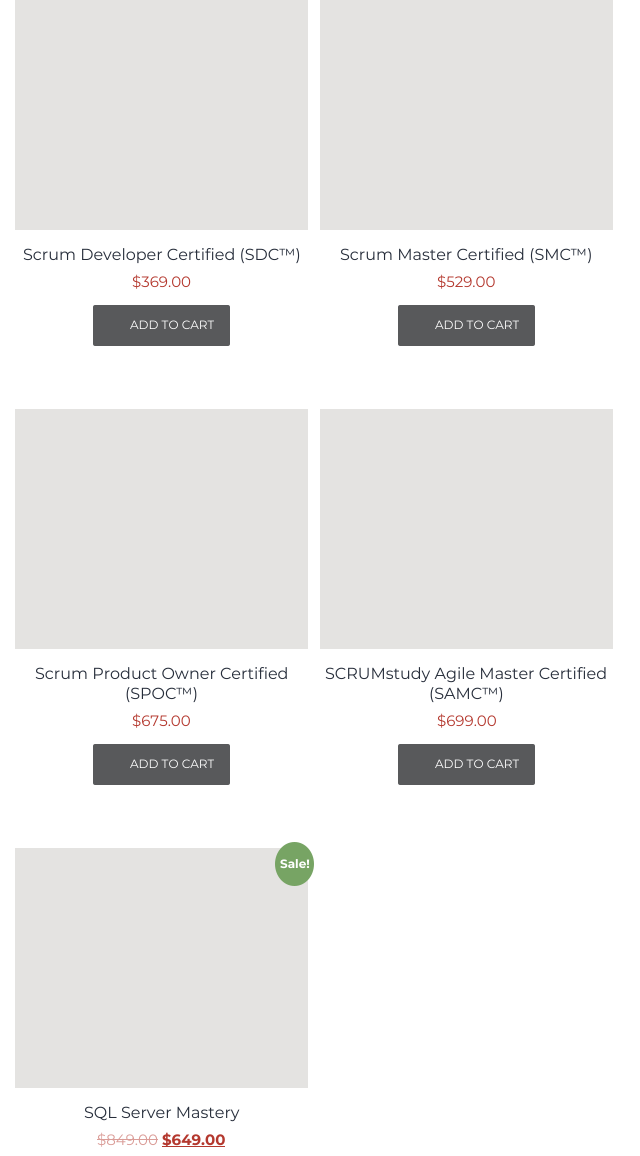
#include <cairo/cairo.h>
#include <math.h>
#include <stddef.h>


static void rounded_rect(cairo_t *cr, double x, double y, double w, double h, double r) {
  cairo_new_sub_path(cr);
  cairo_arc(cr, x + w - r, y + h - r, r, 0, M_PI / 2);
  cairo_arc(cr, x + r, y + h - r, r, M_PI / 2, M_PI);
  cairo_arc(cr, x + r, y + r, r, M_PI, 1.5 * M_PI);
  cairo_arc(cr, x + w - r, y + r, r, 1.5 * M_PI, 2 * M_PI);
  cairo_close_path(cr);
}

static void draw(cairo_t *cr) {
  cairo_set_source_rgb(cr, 1, 1, 1);
  cairo_paint(cr);
  cairo_set_source_rgb(cr, 228 / 255.0, 227 / 255.0, 225 / 255.0);
  cairo_rectangle(cr, 15, 0, 293, 230);
  cairo_fill(cr);
  cairo_set_source_rgb(cr, 88 / 255.0, 89 / 255.0, 91 / 255.0);
  rounded_rect(cr, 93, 305, 137, 41, 2);
  cairo_fill(cr);
  cairo_set_source_rgb(cr, 228 / 255.0, 227 / 255.0, 225 / 255.0);
  cairo_rectangle(cr, 320, 0, 293, 230);
  cairo_fill(cr);
  cairo_set_source_rgb(cr, 88 / 255.0, 89 / 255.0, 91 / 255.0);
  rounded_rect(cr, 398, 305, 137, 41, 2);
  cairo_fill(cr);
  cairo_set_source_rgb(cr, 228 / 255.0, 227 / 255.0, 225 / 255.0);
  cairo_rectangle(cr, 15, 409, 293, 240);
  cairo_fill(cr);
  cairo_set_source_rgb(cr, 88 / 255.0, 89 / 255.0, 91 / 255.0);
  rounded_rect(cr, 93, 744, 137, 41, 2);
  cairo_fill(cr);
  cairo_set_source_rgb(cr, 228 / 255.0, 227 / 255.0, 225 / 255.0);
  cairo_rectangle(cr, 320, 409, 293, 240);
  cairo_fill(cr);
  cairo_set_source_rgb(cr, 88 / 255.0, 89 / 255.0, 91 / 255.0);
  rounded_rect(cr, 398, 744, 137, 41, 2);
  cairo_fill(cr);
  cairo_set_source_rgb(cr, 228 / 255.0, 227 / 255.0, 225 / 255.0);
  cairo_rectangle(cr, 15, 848, 293, 240);
  cairo_fill(cr);
  cairo_set_source_rgb(cr, 119 / 255.0, 164 / 255.0, 100 / 255.0);
  cairo_new_path(cr);
  cairo_move_to(cr, 294.5, 842);
  cairo_curve_to(cr, 305.5, 842, 314, 852, 314, 864);
  cairo_curve_to(cr, 314, 876, 305.5, 886, 294.5, 886);
  cairo_curve_to(cr, 283.5, 886, 275, 876, 275, 864);
  cairo_curve_to(cr, 275, 852, 283.5, 842, 294.5, 842);
  cairo_close_path(cr);
  cairo_fill(cr);
  cairo_set_source_rgb(cr, 218 / 255.0, 156 / 255.0, 151 / 255.0);
  cairo_rectangle(cr, 97, 1139, 61, 1);
  cairo_fill(cr);
  cairo_set_source_rgb(cr, 180 / 255.0, 56 / 255.0, 46 / 255.0);
  cairo_rectangle(cr, 162, 1146, 63, 1);
  cairo_fill(cr);
  cairo_select_font_face(cr, "Montserrat", CAIRO_FONT_SLANT_NORMAL, CAIRO_FONT_WEIGHT_NORMAL);
  cairo_set_font_size(cr, 16);
  cairo_set_source_rgb(cr, 38 / 255.0, 45 / 255.0, 58 / 255.0);
  cairo_move_to(cr, 23, 260);
  cairo_show_text(cr, "Scrum Developer Certified (SDC™)");
  cairo_set_font_size(cr, 15);
  cairo_set_source_rgb(cr, 180 / 255.0, 56 / 255.0, 46 / 255.0);
  cairo_move_to(cr, 132, 287);
  cairo_show_text(cr, "$369.00");
  cairo_set_font_size(cr, 12);
  cairo_set_source_rgb(cr, 1, 1, 1);
  cairo_move_to(cr, 130, 329);
  cairo_show_text(cr, "ADD TO CART");
  cairo_set_font_size(cr, 16);
  cairo_set_source_rgb(cr, 38 / 255.0, 45 / 255.0, 58 / 255.0);
  cairo_move_to(cr, 340, 260);
  cairo_show_text(cr, "Scrum Master Certified (SMC™)");
  cairo_set_font_size(cr, 15);
  cairo_set_source_rgb(cr, 180 / 255.0, 56 / 255.0, 46 / 255.0);
  cairo_move_to(cr, 437, 287);
  cairo_show_text(cr, "$529.00");
  cairo_set_font_size(cr, 12);
  cairo_set_source_rgb(cr, 1, 1, 1);
  cairo_move_to(cr, 435, 329);
  cairo_show_text(cr, "ADD TO CART");
  cairo_set_font_size(cr, 16);
  cairo_set_source_rgb(cr, 38 / 255.0, 45 / 255.0, 58 / 255.0);
  cairo_move_to(cr, 35, 679);
  cairo_show_text(cr, "Scrum Product Owner Certified");
  cairo_move_to(cr, 125, 699);
  cairo_show_text(cr, "(SPOC™)");
  cairo_set_font_size(cr, 15);
  cairo_set_source_rgb(cr, 180 / 255.0, 56 / 255.0, 46 / 255.0);
  cairo_move_to(cr, 132, 726);
  cairo_show_text(cr, "$675.00");
  cairo_set_font_size(cr, 12);
  cairo_set_source_rgb(cr, 1, 1, 1);
  cairo_move_to(cr, 130, 768);
  cairo_show_text(cr, "ADD TO CART");
  cairo_set_font_size(cr, 16);
  cairo_set_source_rgb(cr, 38 / 255.0, 45 / 255.0, 58 / 255.0);
  cairo_move_to(cr, 325, 679);
  cairo_show_text(cr, "SCRUMstudy Agile Master Certified");
  cairo_move_to(cr, 429, 699);
  cairo_show_text(cr, "(SAMC™)");
  cairo_set_font_size(cr, 15);
  cairo_set_source_rgb(cr, 180 / 255.0, 56 / 255.0, 46 / 255.0);
  cairo_move_to(cr, 437, 726);
  cairo_show_text(cr, "$699.00");
  cairo_set_font_size(cr, 12);
  cairo_set_source_rgb(cr, 1, 1, 1);
  cairo_move_to(cr, 435, 768);
  cairo_show_text(cr, "ADD TO CART");
  cairo_select_font_face(cr, "Montserrat", CAIRO_FONT_SLANT_NORMAL, CAIRO_FONT_WEIGHT_BOLD);
  cairo_move_to(cr, 280, 868);
  cairo_show_text(cr, "Sale!");
  cairo_select_font_face(cr, "Montserrat", CAIRO_FONT_SLANT_NORMAL, CAIRO_FONT_WEIGHT_NORMAL);
  cairo_set_font_size(cr, 16);
  cairo_set_source_rgb(cr, 38 / 255.0, 45 / 255.0, 58 / 255.0);
  cairo_move_to(cr, 84, 1118);
  cairo_show_text(cr, "SQL Server Mastery");
  cairo_set_font_size(cr, 15);
  cairo_set_source_rgb(cr, 218 / 255.0, 156 / 255.0, 151 / 255.0);
  cairo_move_to(cr, 97, 1145);
  cairo_show_text(cr, "$849.00");
  cairo_select_font_face(cr, "Montserrat", CAIRO_FONT_SLANT_NORMAL, CAIRO_FONT_WEIGHT_BOLD);
  cairo_set_source_rgb(cr, 180 / 255.0, 56 / 255.0, 46 / 255.0);
  cairo_move_to(cr, 162, 1145);
  cairo_show_text(cr, "$649.00");
}

int main(void) {
  cairo_surface_t *surface = cairo_image_surface_create(CAIRO_FORMAT_RGB24, 640, 1156);
  cairo_t *cr = cairo_create(surface);
  cairo_font_options_t *options = cairo_font_options_create();
  cairo_font_options_set_hint_metrics(options, CAIRO_HINT_METRICS_OFF);
  cairo_font_options_set_hint_style(options, CAIRO_HINT_STYLE_NONE);
  cairo_set_font_options(cr, options);
  cairo_set_miter_limit(cr, 4);
  draw(cr);
  cairo_surface_write_to_png(surface, "out.png");
  cairo_font_options_destroy(options);
  cairo_destroy(cr);
  cairo_surface_destroy(surface);
  return 0;
}
